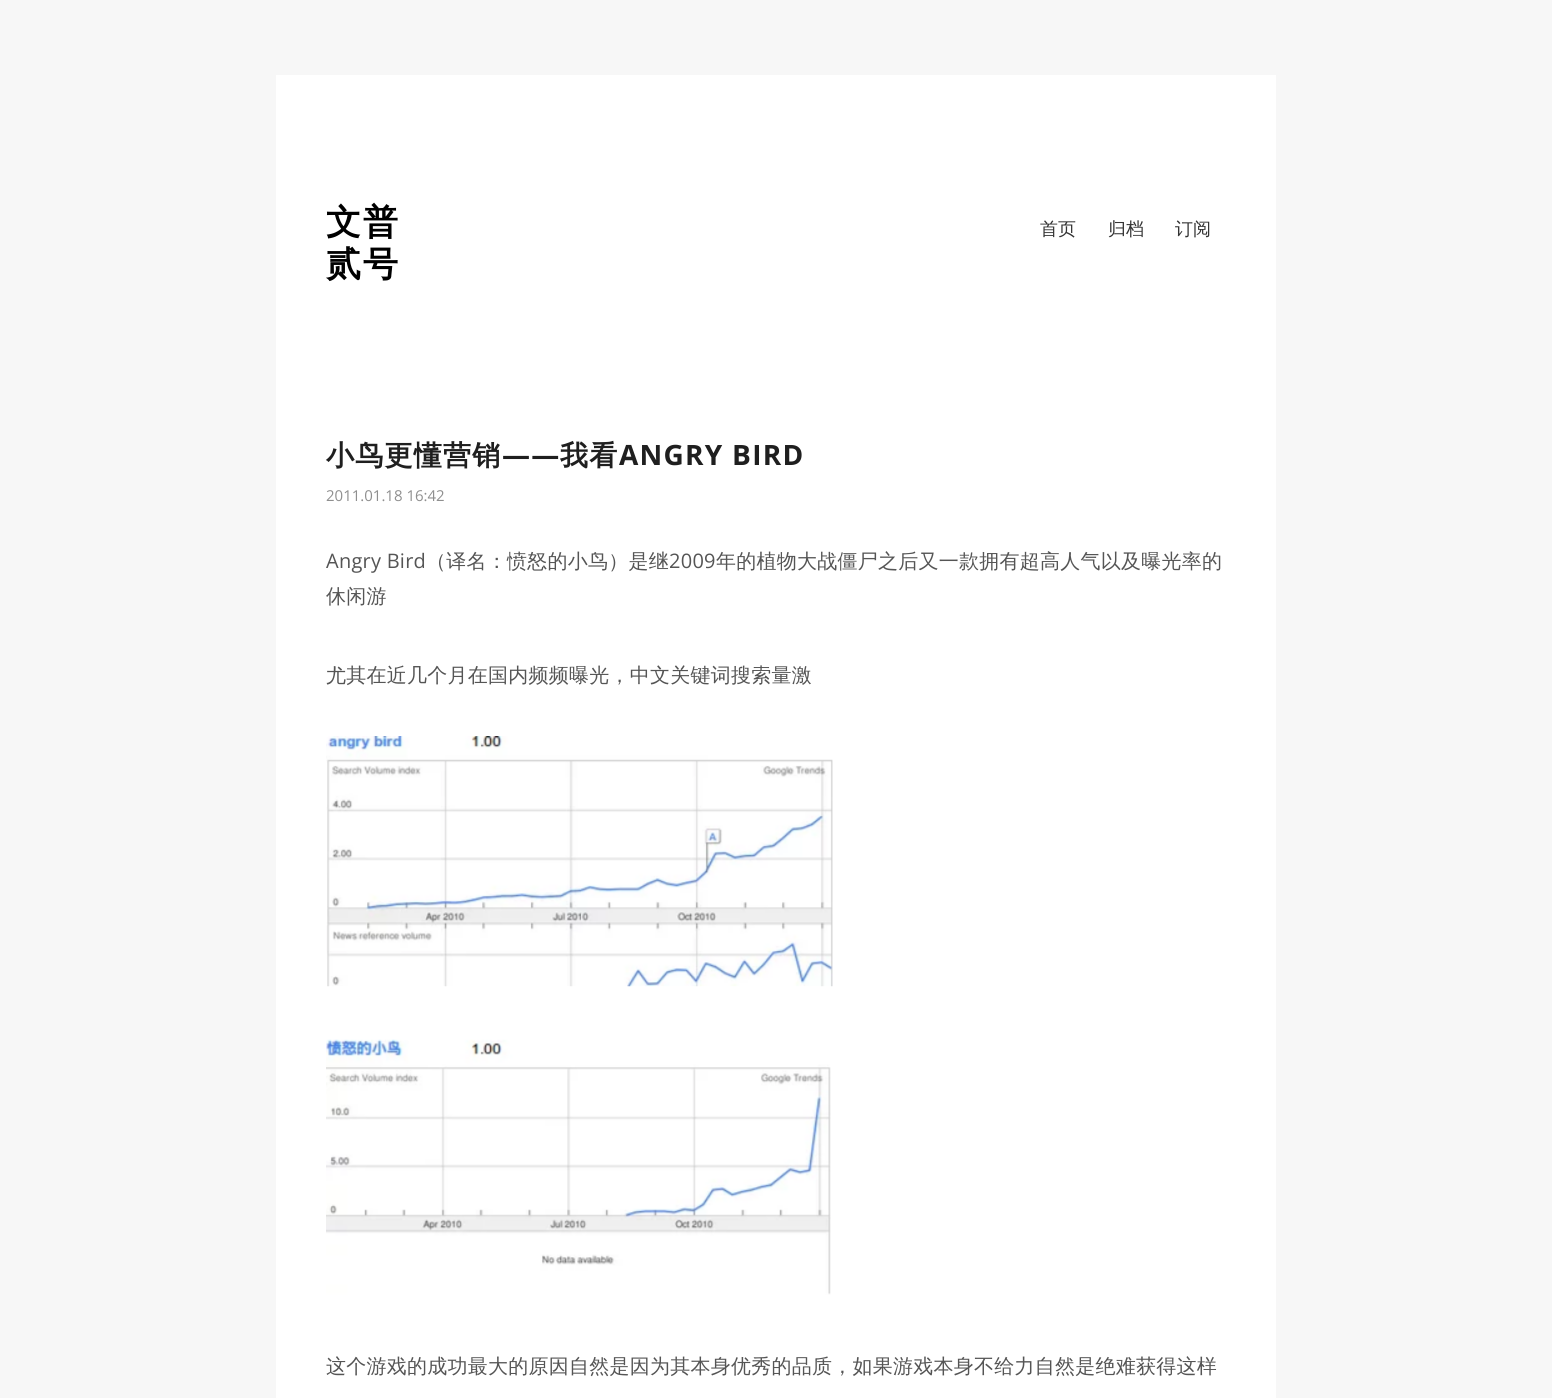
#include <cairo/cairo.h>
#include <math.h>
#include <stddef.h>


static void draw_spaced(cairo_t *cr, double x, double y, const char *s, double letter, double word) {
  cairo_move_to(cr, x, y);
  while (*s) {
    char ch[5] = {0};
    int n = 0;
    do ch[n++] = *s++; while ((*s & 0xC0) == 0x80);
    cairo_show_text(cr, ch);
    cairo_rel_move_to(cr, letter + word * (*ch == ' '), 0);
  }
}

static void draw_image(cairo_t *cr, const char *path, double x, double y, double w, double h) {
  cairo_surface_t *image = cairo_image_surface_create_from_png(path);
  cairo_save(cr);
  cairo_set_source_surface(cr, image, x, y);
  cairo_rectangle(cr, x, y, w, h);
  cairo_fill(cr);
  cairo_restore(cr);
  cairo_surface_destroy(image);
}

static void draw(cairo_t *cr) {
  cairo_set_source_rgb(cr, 247 / 255.0, 247 / 255.0, 247 / 255.0);
  cairo_paint(cr);
  cairo_set_source_rgb(cr, 1, 1, 1);
  cairo_rectangle(cr, 276, 75, 1000, 1323);
  cairo_fill(cr);
  draw_image(cr, "images/1.png", 326, 736, 507, 251);
  draw_image(cr, "images/2.png", 326, 1039, 505, 256);
  cairo_select_font_face(cr, "WenQuanYi Zen Hei", CAIRO_FONT_SLANT_NORMAL, CAIRO_FONT_WEIGHT_BOLD);
  cairo_set_font_size(cr, 35);
  cairo_set_source_rgb(cr, 0, 0, 0);
  draw_spaced(cr, 326, 234, "文普", 2, 0);
  draw_spaced(cr, 326, 276, "贰号", 2, 0);
  cairo_select_font_face(cr, "WenQuanYi Zen Hei Medium", CAIRO_FONT_SLANT_NORMAL, CAIRO_FONT_WEIGHT_NORMAL);
  cairo_set_font_size(cr, 18);
  cairo_set_source_rgb(cr, 51 / 255.0, 51 / 255.0, 51 / 255.0);
  cairo_move_to(cr, 1040, 235);
  cairo_show_text(cr, "首页");
  cairo_move_to(cr, 1108, 235);
  cairo_show_text(cr, "归档");
  cairo_move_to(cr, 1175, 235);
  cairo_show_text(cr, "订阅");
  cairo_select_font_face(cr, "WenQuanYi Zen Hei", CAIRO_FONT_SLANT_NORMAL, CAIRO_FONT_WEIGHT_BOLD);
  cairo_set_font_size(cr, 28);
  cairo_set_source_rgb(cr, 31 / 255.0, 31 / 255.0, 31 / 255.0);
  draw_spaced(cr, 326, 465, "小鸟更懂营销", 1.25, 0);
  cairo_select_font_face(cr, "Open Sans", CAIRO_FONT_SLANT_NORMAL, CAIRO_FONT_WEIGHT_BOLD);
  draw_spaced(cr, 502, 465, "——", 1.25, 0);
  cairo_select_font_face(cr, "WenQuanYi Zen Hei", CAIRO_FONT_SLANT_NORMAL, CAIRO_FONT_WEIGHT_BOLD);
  draw_spaced(cr, 560, 465, "我看", 1.25, 0);
  cairo_select_font_face(cr, "Open Sans", CAIRO_FONT_SLANT_NORMAL, CAIRO_FONT_WEIGHT_BOLD);
  draw_spaced(cr, 619, 465, "ANGRY BIRD", 1.25, 0);
  cairo_select_font_face(cr, "Open Sans", CAIRO_FONT_SLANT_NORMAL, CAIRO_FONT_WEIGHT_NORMAL);
  cairo_set_font_size(cr, 15);
  cairo_set_source_rgb(cr, 143 / 255.0, 143 / 255.0, 143 / 255.0);
  cairo_move_to(cr, 326, 501);
  cairo_show_text(cr, "2011.01.18 16:42");
  cairo_set_font_size(cr, 20);
  cairo_set_source_rgb(cr, 85 / 255.0, 85 / 255.0, 85 / 255.0);
  draw_spaced(cr, 326, 568, "Angry Bird", 0.25, 0);
  cairo_select_font_face(cr, "WenQuanYi Zen Hei Medium", CAIRO_FONT_SLANT_NORMAL, CAIRO_FONT_WEIGHT_NORMAL);
  draw_spaced(cr, 426, 568, "（译名：愤怒的小鸟）是继", 0.25, 0);
  cairo_select_font_face(cr, "Open Sans", CAIRO_FONT_SLANT_NORMAL, CAIRO_FONT_WEIGHT_NORMAL);
  draw_spaced(cr, 669, 568, "2009", 0.25, 0);
  cairo_select_font_face(cr, "WenQuanYi Zen Hei Medium", CAIRO_FONT_SLANT_NORMAL, CAIRO_FONT_WEIGHT_NORMAL);
  draw_spaced(cr, 716, 568, "年的植物大战僵尸之后又一款拥有超高人气以及曝光率的", 0.25, 0);
  draw_spaced(cr, 326, 603, "休闲游", 0.25, 0);
  draw_spaced(cr, 326, 682, "尤其在近几个月在国内频频曝光，中文关键词搜索量激", 0.25, 0);
  draw_spaced(cr, 326, 1373, "这个游戏的成功最大的原因自然是因为其本身优秀的品质，如果游戏本身不给力自然是绝难获得这样", 0.25, 0);
}

int main(void) {
  cairo_surface_t *surface = cairo_image_surface_create(CAIRO_FORMAT_RGB24, 1552, 1398);
  cairo_t *cr = cairo_create(surface);
  cairo_font_options_t *options = cairo_font_options_create();
  cairo_font_options_set_hint_metrics(options, CAIRO_HINT_METRICS_OFF);
  cairo_font_options_set_hint_style(options, CAIRO_HINT_STYLE_NONE);
  cairo_set_font_options(cr, options);
  cairo_set_miter_limit(cr, 4);
  draw(cr);
  cairo_surface_write_to_png(surface, "out.png");
  cairo_font_options_destroy(options);
  cairo_destroy(cr);
  cairo_surface_destroy(surface);
  return 0;
}
